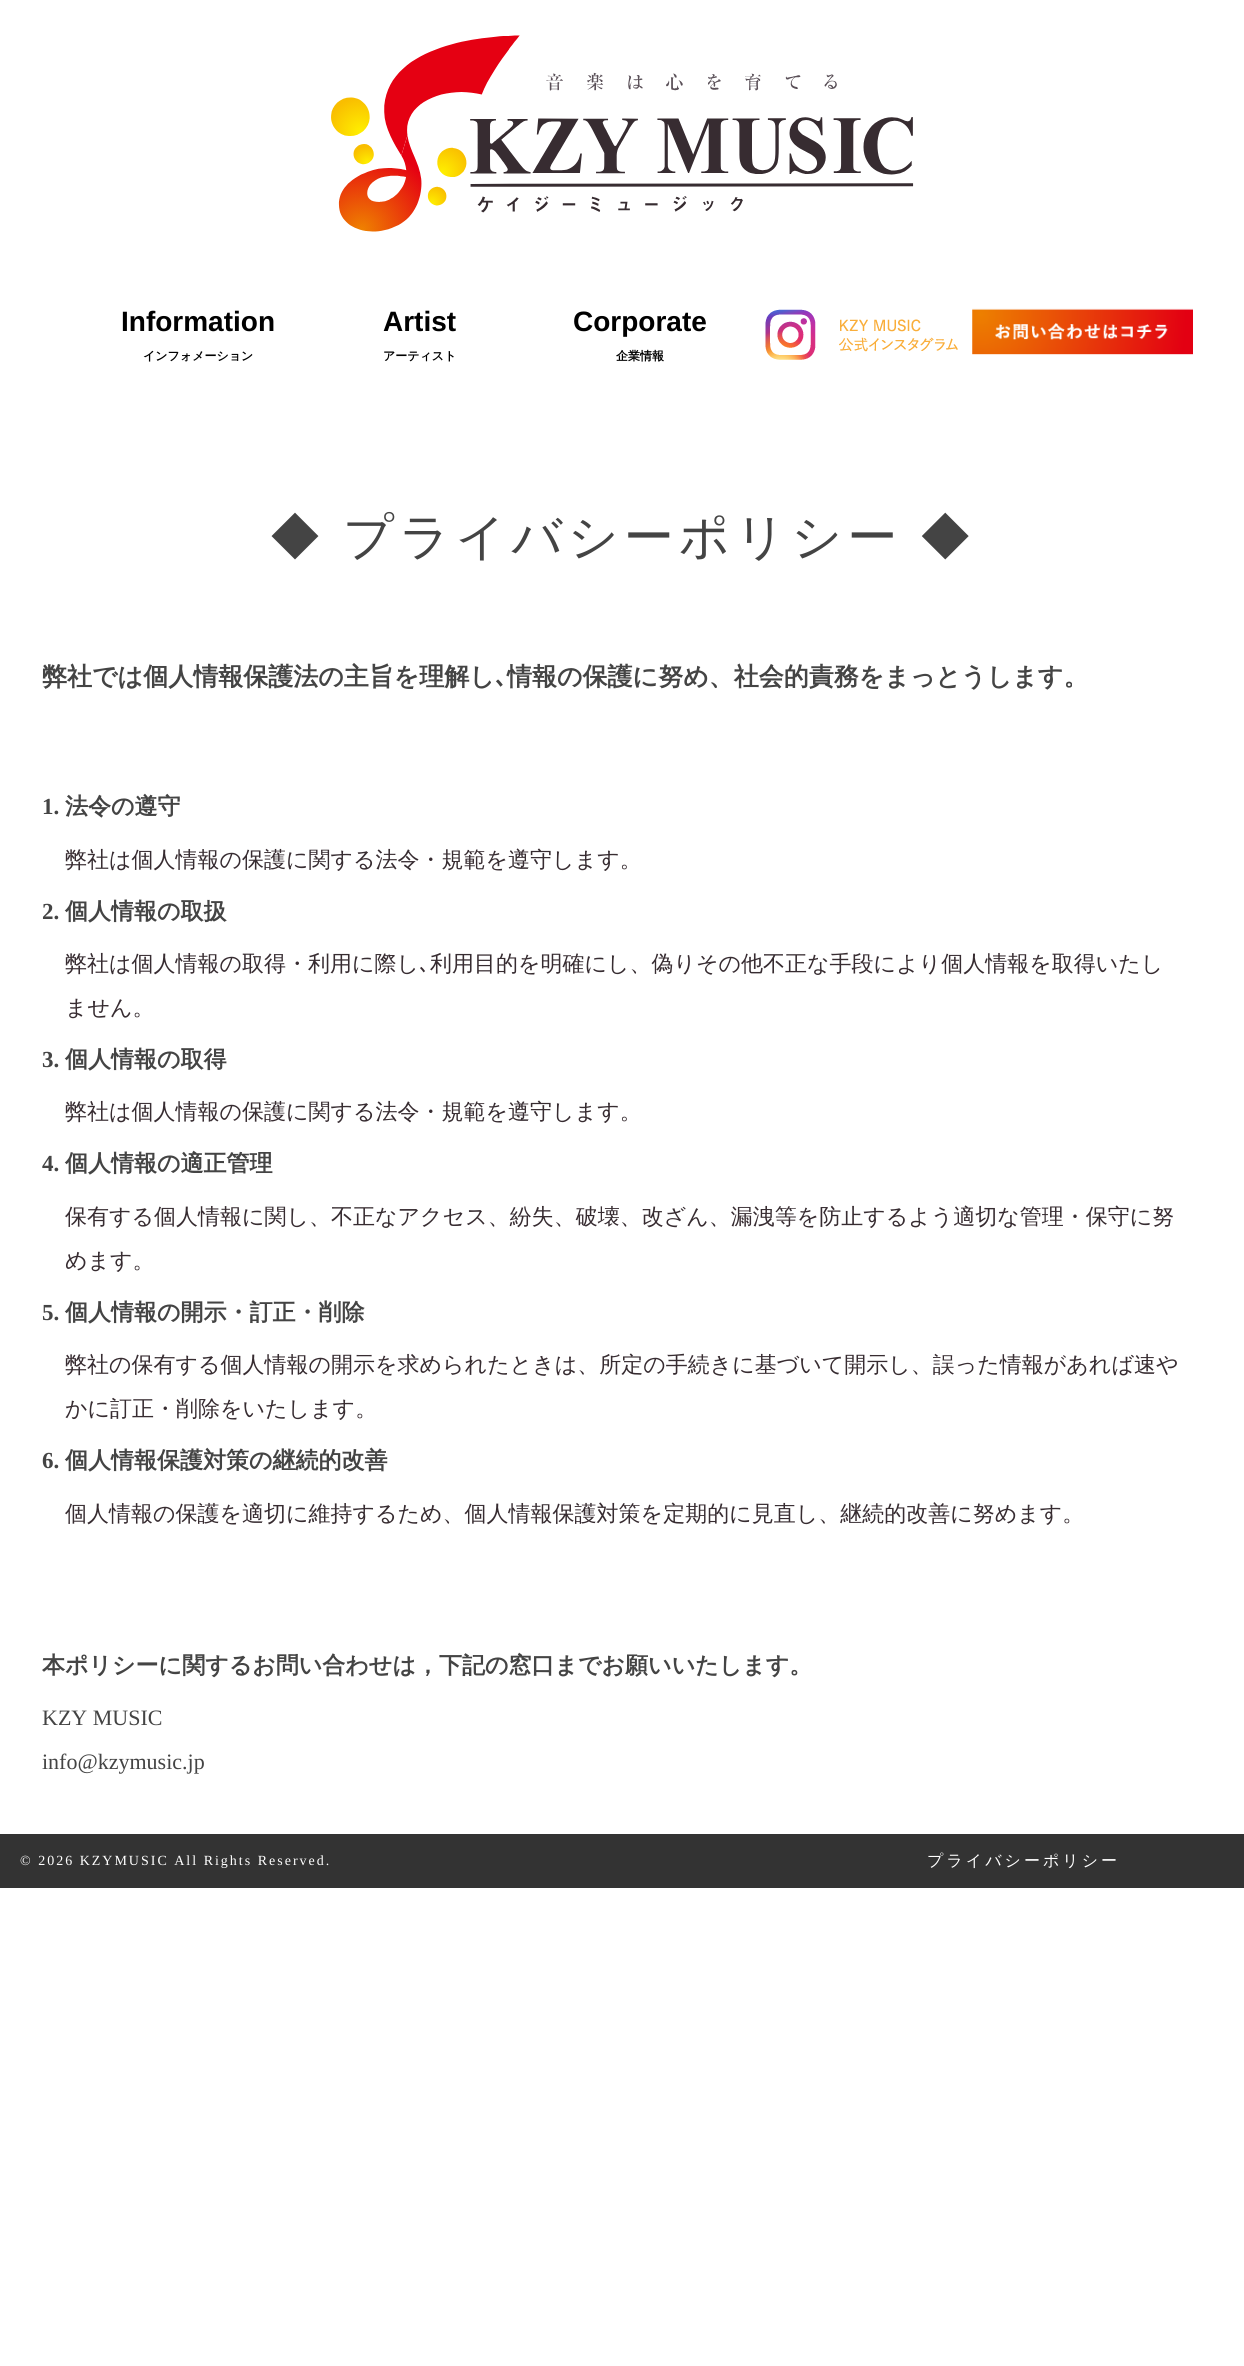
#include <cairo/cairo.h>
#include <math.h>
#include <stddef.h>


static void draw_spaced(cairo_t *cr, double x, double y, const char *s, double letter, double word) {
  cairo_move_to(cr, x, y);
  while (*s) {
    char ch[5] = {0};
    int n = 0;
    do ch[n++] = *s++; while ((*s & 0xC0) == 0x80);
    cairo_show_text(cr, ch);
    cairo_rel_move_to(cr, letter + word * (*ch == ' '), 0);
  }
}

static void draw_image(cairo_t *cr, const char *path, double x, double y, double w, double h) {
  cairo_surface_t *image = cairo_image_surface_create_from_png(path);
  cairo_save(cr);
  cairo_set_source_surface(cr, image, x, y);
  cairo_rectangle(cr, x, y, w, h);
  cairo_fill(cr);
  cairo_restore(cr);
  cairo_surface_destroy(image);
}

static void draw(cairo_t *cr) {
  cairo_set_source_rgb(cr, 1, 1, 1);
  cairo_paint(cr);
  draw_image(cr, "images/1.png", 331, 35, 583, 197);
  draw_image(cr, "images/2.png", 765, 309, 193, 51);
  draw_image(cr, "images/3.png", 972, 308, 221, 47);
  cairo_set_source_rgb(cr, 51 / 255.0, 51 / 255.0, 51 / 255.0);
  cairo_rectangle(cr, 0, 1834, 1244, 54);
  cairo_fill(cr);
  cairo_select_font_face(cr, "Liberation Sans", CAIRO_FONT_SLANT_NORMAL, CAIRO_FONT_WEIGHT_BOLD);
  cairo_set_font_size(cr, 28);
  cairo_set_source_rgb(cr, 0, 0, 0);
  cairo_move_to(cr, 121, 331);
  cairo_show_text(cr, "Information");
  cairo_select_font_face(cr, "WenQuanYi Zen Hei", CAIRO_FONT_SLANT_NORMAL, CAIRO_FONT_WEIGHT_BOLD);
  cairo_set_font_size(cr, 12);
  cairo_move_to(cr, 143, 360);
  cairo_show_text(cr, "インフォメーション");
  cairo_select_font_face(cr, "Liberation Sans", CAIRO_FONT_SLANT_NORMAL, CAIRO_FONT_WEIGHT_BOLD);
  cairo_set_font_size(cr, 28);
  cairo_move_to(cr, 383, 331);
  cairo_show_text(cr, "Artist");
  cairo_select_font_face(cr, "WenQuanYi Zen Hei", CAIRO_FONT_SLANT_NORMAL, CAIRO_FONT_WEIGHT_BOLD);
  cairo_set_font_size(cr, 12);
  cairo_move_to(cr, 383, 360);
  cairo_show_text(cr, "アーティスト");
  cairo_select_font_face(cr, "Liberation Sans", CAIRO_FONT_SLANT_NORMAL, CAIRO_FONT_WEIGHT_BOLD);
  cairo_set_font_size(cr, 28);
  cairo_move_to(cr, 573, 331);
  cairo_show_text(cr, "Corporate");
  cairo_select_font_face(cr, "WenQuanYi Zen Hei", CAIRO_FONT_SLANT_NORMAL, CAIRO_FONT_WEIGHT_BOLD);
  cairo_set_font_size(cr, 12);
  cairo_move_to(cr, 616, 360);
  cairo_show_text(cr, "企業情報");
  cairo_select_font_face(cr, "WenQuanYi Zen Hei Medium", CAIRO_FONT_SLANT_NORMAL, CAIRO_FONT_WEIGHT_NORMAL);
  cairo_set_font_size(cr, 50);
  cairo_set_source_rgb(cr, 68 / 255.0, 68 / 255.0, 68 / 255.0);
  draw_spaced(cr, 270, 554, "◆ プライバシーポリシー ◆", 5, -2);
  cairo_select_font_face(cr, "WenQuanYi Zen Hei", CAIRO_FONT_SLANT_NORMAL, CAIRO_FONT_WEIGHT_BOLD);
  cairo_set_font_size(cr, 25);
  cairo_move_to(cr, 42, 685);
  cairo_show_text(cr, "弊社では個人情報保護法の主旨を理解し");
  cairo_select_font_face(cr, "IPAPGothic", CAIRO_FONT_SLANT_NORMAL, CAIRO_FONT_WEIGHT_BOLD);
  cairo_move_to(cr, 495, 685);
  cairo_show_text(cr, "､");
  cairo_select_font_face(cr, "WenQuanYi Zen Hei", CAIRO_FONT_SLANT_NORMAL, CAIRO_FONT_WEIGHT_BOLD);
  cairo_move_to(cr, 507, 685);
  cairo_show_text(cr, "情報の保護に努め、社会的責務をまっとうします。");
  cairo_select_font_face(cr, "Liberation Serif", CAIRO_FONT_SLANT_NORMAL, CAIRO_FONT_WEIGHT_BOLD);
  cairo_set_font_size(cr, 23);
  cairo_move_to(cr, 42, 814);
  cairo_show_text(cr, "1.");
  cairo_select_font_face(cr, "WenQuanYi Zen Hei", CAIRO_FONT_SLANT_NORMAL, CAIRO_FONT_WEIGHT_BOLD);
  cairo_move_to(cr, 65, 814);
  cairo_show_text(cr, "法令の遵守");
  cairo_select_font_face(cr, "WenQuanYi Zen Hei Medium", CAIRO_FONT_SLANT_NORMAL, CAIRO_FONT_WEIGHT_NORMAL);
  cairo_set_font_size(cr, 22);
  cairo_set_source_rgb(cr, 55 / 255.0, 44 / 255.0, 49 / 255.0);
  cairo_move_to(cr, 65, 867);
  cairo_show_text(cr, "弊社は個人情報の保護に関する法令・規範を遵守します。");
  cairo_select_font_face(cr, "Liberation Serif", CAIRO_FONT_SLANT_NORMAL, CAIRO_FONT_WEIGHT_BOLD);
  cairo_set_font_size(cr, 23);
  cairo_set_source_rgb(cr, 68 / 255.0, 68 / 255.0, 68 / 255.0);
  cairo_move_to(cr, 42, 919);
  cairo_show_text(cr, "2.");
  cairo_select_font_face(cr, "WenQuanYi Zen Hei", CAIRO_FONT_SLANT_NORMAL, CAIRO_FONT_WEIGHT_BOLD);
  cairo_move_to(cr, 65, 919);
  cairo_show_text(cr, "個人情報の取扱");
  cairo_select_font_face(cr, "WenQuanYi Zen Hei Medium", CAIRO_FONT_SLANT_NORMAL, CAIRO_FONT_WEIGHT_NORMAL);
  cairo_set_font_size(cr, 22);
  cairo_set_source_rgb(cr, 55 / 255.0, 44 / 255.0, 49 / 255.0);
  cairo_move_to(cr, 65, 971);
  cairo_show_text(cr, "弊社は個人情報の取得・利用に際し");
  cairo_select_font_face(cr, "IPAPGothic", CAIRO_FONT_SLANT_NORMAL, CAIRO_FONT_WEIGHT_NORMAL);
  cairo_move_to(cr, 419, 971);
  cairo_show_text(cr, "､");
  cairo_select_font_face(cr, "WenQuanYi Zen Hei Medium", CAIRO_FONT_SLANT_NORMAL, CAIRO_FONT_WEIGHT_NORMAL);
  cairo_move_to(cr, 430, 971);
  cairo_show_text(cr, "利用目的を明確にし、偽りその他不正な手段により個人情報を取得いたし");
  cairo_move_to(cr, 65, 1015);
  cairo_show_text(cr, "ません。");
  cairo_select_font_face(cr, "Liberation Serif", CAIRO_FONT_SLANT_NORMAL, CAIRO_FONT_WEIGHT_BOLD);
  cairo_set_font_size(cr, 23);
  cairo_set_source_rgb(cr, 68 / 255.0, 68 / 255.0, 68 / 255.0);
  cairo_move_to(cr, 42, 1067);
  cairo_show_text(cr, "3.");
  cairo_select_font_face(cr, "WenQuanYi Zen Hei", CAIRO_FONT_SLANT_NORMAL, CAIRO_FONT_WEIGHT_BOLD);
  cairo_move_to(cr, 65, 1067);
  cairo_show_text(cr, "個人情報の取得");
  cairo_select_font_face(cr, "WenQuanYi Zen Hei Medium", CAIRO_FONT_SLANT_NORMAL, CAIRO_FONT_WEIGHT_NORMAL);
  cairo_set_font_size(cr, 22);
  cairo_set_source_rgb(cr, 55 / 255.0, 44 / 255.0, 49 / 255.0);
  cairo_move_to(cr, 65, 1119);
  cairo_show_text(cr, "弊社は個人情報の保護に関する法令・規範を遵守します。");
  cairo_select_font_face(cr, "Liberation Serif", CAIRO_FONT_SLANT_NORMAL, CAIRO_FONT_WEIGHT_BOLD);
  cairo_set_font_size(cr, 23);
  cairo_set_source_rgb(cr, 68 / 255.0, 68 / 255.0, 68 / 255.0);
  cairo_move_to(cr, 42, 1171);
  cairo_show_text(cr, "4.");
  cairo_select_font_face(cr, "WenQuanYi Zen Hei", CAIRO_FONT_SLANT_NORMAL, CAIRO_FONT_WEIGHT_BOLD);
  cairo_move_to(cr, 65, 1171);
  cairo_show_text(cr, "個人情報の適正管理");
  cairo_select_font_face(cr, "WenQuanYi Zen Hei Medium", CAIRO_FONT_SLANT_NORMAL, CAIRO_FONT_WEIGHT_NORMAL);
  cairo_set_font_size(cr, 22);
  cairo_set_source_rgb(cr, 55 / 255.0, 44 / 255.0, 49 / 255.0);
  cairo_move_to(cr, 65, 1224);
  cairo_show_text(cr, "保有する個人情報に関し、不正なアクセス、紛失、破壊、改ざん、漏洩等を防止するよう適切な管理・保守に努");
  cairo_move_to(cr, 65, 1268);
  cairo_show_text(cr, "めます。");
  cairo_select_font_face(cr, "Liberation Serif", CAIRO_FONT_SLANT_NORMAL, CAIRO_FONT_WEIGHT_BOLD);
  cairo_set_font_size(cr, 23);
  cairo_set_source_rgb(cr, 68 / 255.0, 68 / 255.0, 68 / 255.0);
  cairo_move_to(cr, 42, 1320);
  cairo_show_text(cr, "5.");
  cairo_select_font_face(cr, "WenQuanYi Zen Hei", CAIRO_FONT_SLANT_NORMAL, CAIRO_FONT_WEIGHT_BOLD);
  cairo_move_to(cr, 65, 1320);
  cairo_show_text(cr, "個人情報の開示・訂正・削除");
  cairo_select_font_face(cr, "WenQuanYi Zen Hei Medium", CAIRO_FONT_SLANT_NORMAL, CAIRO_FONT_WEIGHT_NORMAL);
  cairo_set_font_size(cr, 22);
  cairo_set_source_rgb(cr, 55 / 255.0, 44 / 255.0, 49 / 255.0);
  cairo_move_to(cr, 65, 1372);
  cairo_show_text(cr, "弊社の保有する個人情報の開示を求められたときは、所定の手続きに基づいて開示し、誤った情報があれば速や");
  cairo_move_to(cr, 65, 1416);
  cairo_show_text(cr, "かに訂正・削除をいたします。");
  cairo_select_font_face(cr, "Liberation Serif", CAIRO_FONT_SLANT_NORMAL, CAIRO_FONT_WEIGHT_BOLD);
  cairo_set_font_size(cr, 23);
  cairo_set_source_rgb(cr, 68 / 255.0, 68 / 255.0, 68 / 255.0);
  cairo_move_to(cr, 42, 1468);
  cairo_show_text(cr, "6.");
  cairo_select_font_face(cr, "WenQuanYi Zen Hei", CAIRO_FONT_SLANT_NORMAL, CAIRO_FONT_WEIGHT_BOLD);
  cairo_move_to(cr, 65, 1468);
  cairo_show_text(cr, "個人情報保護対策の継続的改善");
  cairo_select_font_face(cr, "WenQuanYi Zen Hei Medium", CAIRO_FONT_SLANT_NORMAL, CAIRO_FONT_WEIGHT_NORMAL);
  cairo_set_font_size(cr, 22);
  cairo_set_source_rgb(cr, 55 / 255.0, 44 / 255.0, 49 / 255.0);
  cairo_move_to(cr, 65, 1521);
  cairo_show_text(cr, "個人情報の保護を適切に維持するため、個人情報保護対策を定期的に見直し、継続的改善に努めます。");
  cairo_select_font_face(cr, "WenQuanYi Zen Hei", CAIRO_FONT_SLANT_NORMAL, CAIRO_FONT_WEIGHT_BOLD);
  cairo_set_font_size(cr, 23);
  cairo_set_source_rgb(cr, 68 / 255.0, 68 / 255.0, 68 / 255.0);
  cairo_move_to(cr, 42, 1673);
  cairo_show_text(cr, "本ポリシーに関するお問い合わせは，下記の窓口までお願いいたします。");
  cairo_select_font_face(cr, "Liberation Serif", CAIRO_FONT_SLANT_NORMAL, CAIRO_FONT_WEIGHT_NORMAL);
  cairo_set_font_size(cr, 22);
  cairo_move_to(cr, 42, 1725);
  cairo_show_text(cr, "KZY MUSIC");
  cairo_move_to(cr, 42, 1769);
  cairo_show_text(cr, "info@kzymusic.jp");
  cairo_set_font_size(cr, 14);
  cairo_set_source_rgb(cr, 1, 1, 1);
  draw_spaced(cr, 20, 1865, "© 2026 KZYMUSIC All Rights Reserved.", 2, 0);
  cairo_select_font_face(cr, "WenQuanYi Zen Hei Medium", CAIRO_FONT_SLANT_NORMAL, CAIRO_FONT_WEIGHT_NORMAL);
  cairo_set_font_size(cr, 16);
  draw_spaced(cr, 927, 1866, "プライバシーポリシー", 3, 0);
}

int main(void) {
  cairo_surface_t *surface = cairo_image_surface_create(CAIRO_FORMAT_RGB24, 1244, 2366);
  cairo_t *cr = cairo_create(surface);
  cairo_font_options_t *options = cairo_font_options_create();
  cairo_font_options_set_hint_metrics(options, CAIRO_HINT_METRICS_OFF);
  cairo_font_options_set_hint_style(options, CAIRO_HINT_STYLE_NONE);
  cairo_set_font_options(cr, options);
  cairo_set_miter_limit(cr, 4);
  draw(cr);
  cairo_surface_write_to_png(surface, "out.png");
  cairo_font_options_destroy(options);
  cairo_destroy(cr);
  cairo_surface_destroy(surface);
  return 0;
}
